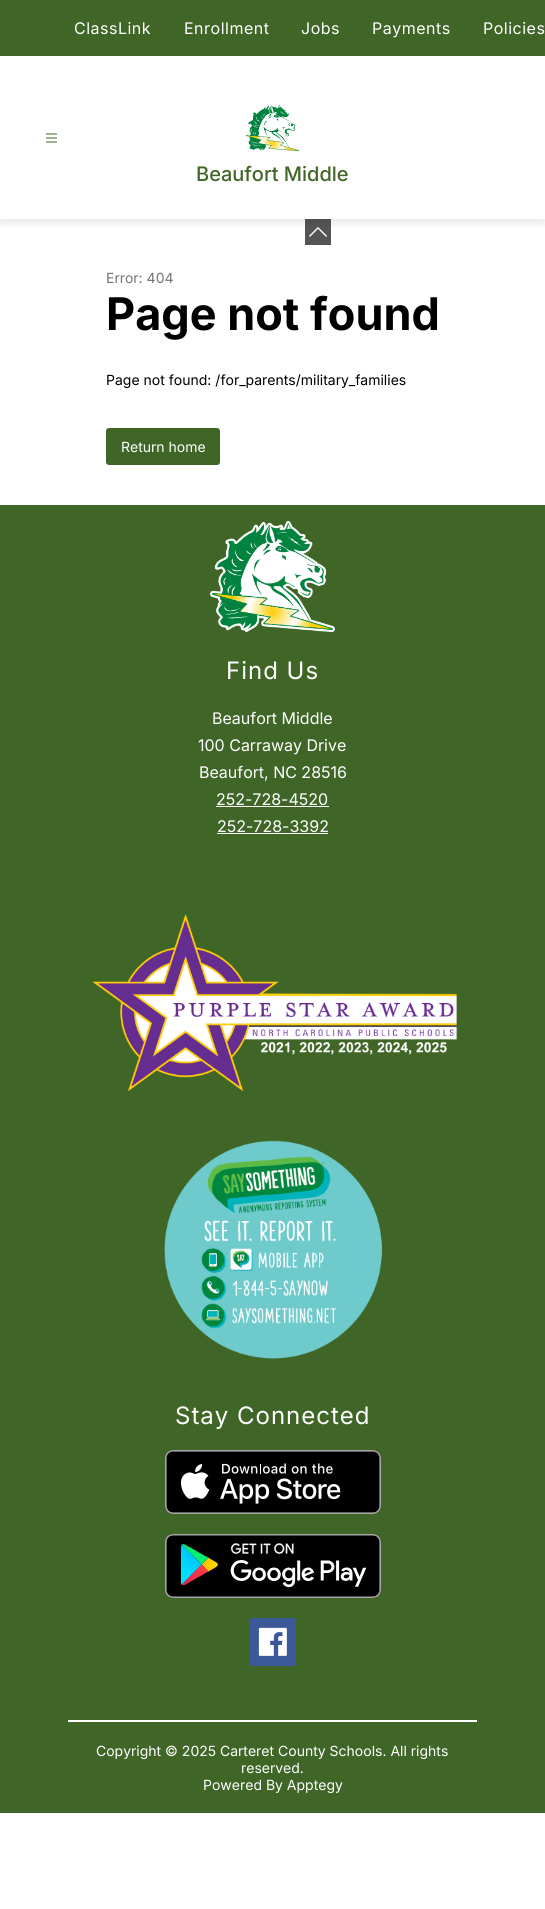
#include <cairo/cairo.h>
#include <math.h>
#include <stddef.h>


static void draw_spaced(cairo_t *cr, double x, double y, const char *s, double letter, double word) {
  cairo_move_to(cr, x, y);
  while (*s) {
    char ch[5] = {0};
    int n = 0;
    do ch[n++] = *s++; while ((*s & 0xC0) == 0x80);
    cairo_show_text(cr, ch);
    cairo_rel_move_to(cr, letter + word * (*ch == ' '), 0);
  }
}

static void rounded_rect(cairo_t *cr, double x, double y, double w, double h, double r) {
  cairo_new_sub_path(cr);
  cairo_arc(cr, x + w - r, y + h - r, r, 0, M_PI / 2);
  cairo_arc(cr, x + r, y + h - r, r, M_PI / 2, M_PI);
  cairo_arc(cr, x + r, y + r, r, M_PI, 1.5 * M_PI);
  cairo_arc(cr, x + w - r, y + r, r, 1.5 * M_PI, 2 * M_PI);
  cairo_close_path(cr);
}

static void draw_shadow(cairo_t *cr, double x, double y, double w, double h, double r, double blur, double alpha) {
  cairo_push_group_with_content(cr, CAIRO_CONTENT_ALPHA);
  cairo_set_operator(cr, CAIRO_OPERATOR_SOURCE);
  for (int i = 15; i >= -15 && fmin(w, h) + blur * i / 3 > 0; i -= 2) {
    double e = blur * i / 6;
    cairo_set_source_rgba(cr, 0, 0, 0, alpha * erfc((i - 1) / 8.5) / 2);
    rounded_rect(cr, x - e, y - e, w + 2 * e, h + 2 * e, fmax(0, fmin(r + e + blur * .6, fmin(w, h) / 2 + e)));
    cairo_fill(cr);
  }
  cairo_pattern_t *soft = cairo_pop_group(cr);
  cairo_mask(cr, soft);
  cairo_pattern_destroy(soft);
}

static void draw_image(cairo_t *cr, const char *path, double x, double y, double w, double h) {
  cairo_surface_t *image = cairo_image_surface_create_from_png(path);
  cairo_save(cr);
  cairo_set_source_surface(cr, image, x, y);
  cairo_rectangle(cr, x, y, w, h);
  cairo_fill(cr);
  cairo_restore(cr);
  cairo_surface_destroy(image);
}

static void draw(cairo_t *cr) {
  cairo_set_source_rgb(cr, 1, 1, 1);
  cairo_paint(cr);
  cairo_set_source_rgb(cr, 85 / 255.0, 85 / 255.0, 85 / 255.0);
  cairo_rectangle(cr, 305, 219, 26, 26);
  cairo_fill(cr);
  draw_image(cr, "images/3.png", 309, 227, 18, 10);
  cairo_save(cr);
  cairo_rectangle(cr, 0, 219, 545, 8);
  cairo_clip(cr);
  cairo_set_source_rgb(cr, 0, 0, 0);
  draw_shadow(cr, 0, 4, 545, 219, 0, 5, 0.1);
  cairo_restore(cr);
  cairo_set_source_rgb(cr, 64 / 255.0, 102 / 255.0, 39 / 255.0);
  cairo_rectangle(cr, 0, 0, 545, 56);
  cairo_fill(cr);
  draw_image(cr, "images/1.png", 46, 133, 11, 10);
  draw_image(cr, "images/2.png", 246, 105, 53, 47);
  rounded_rect(cr, 106, 428, 114, 37, 3);
  cairo_fill(cr);
  cairo_rectangle(cr, 0, 505, 545, 1308);
  cairo_fill(cr);
  draw_image(cr, "images/4.png", 210, 521, 125, 111);
  cairo_set_source_rgb(cr, 1, 1, 1);
  cairo_rectangle(cr, 216, 806, 113, 1);
  cairo_fill(cr);
  cairo_rectangle(cr, 217, 833, 111, 1);
  cairo_fill(cr);
  draw_image(cr, "images/5.png", 92, 914, 365, 178);
  draw_image(cr, "images/6.png", 164, 1140, 218, 219);
  draw_image(cr, "images/7.png", 165, 1450, 216, 64);
  draw_image(cr, "images/8.png", 165, 1534, 216, 64);
  draw_image(cr, "images/9.png", 249, 1618, 47, 48);
  cairo_rectangle(cr, 68, 1720, 409, 2);
  cairo_fill(cr);
  cairo_select_font_face(cr, "Inter", CAIRO_FONT_SLANT_NORMAL, CAIRO_FONT_WEIGHT_NORMAL);
  cairo_set_font_size(cr, 16);
  draw_spaced(cr, 74, 34, "ClassLink", 0.5, 0);
  draw_spaced(cr, 184, 34, "Enrollment", 0.5, 0);
  draw_spaced(cr, 301, 34, "Jobs", 0.5, 0);
  draw_spaced(cr, 372, 34, "Payments", 0.5, 0);
  draw_spaced(cr, 483, 34, "Policies", 0.5, 0);
  cairo_select_font_face(cr, "Inter Medium", CAIRO_FONT_SLANT_NORMAL, CAIRO_FONT_WEIGHT_NORMAL);
  cairo_set_font_size(cr, 20);
  cairo_set_source_rgb(cr, 64 / 255.0, 102 / 255.0, 39 / 255.0);
  cairo_move_to(cr, 196, 181);
  cairo_show_text(cr, "Beaufort Middle");
  cairo_select_font_face(cr, "Inter", CAIRO_FONT_SLANT_NORMAL, CAIRO_FONT_WEIGHT_NORMAL);
  cairo_set_font_size(cr, 14);
  cairo_set_source_rgb(cr, 116 / 255.0, 116 / 255.0, 116 / 255.0);
  cairo_move_to(cr, 106, 283);
  cairo_show_text(cr, "Error: 404");
  cairo_select_font_face(cr, "Inter", CAIRO_FONT_SLANT_NORMAL, CAIRO_FONT_WEIGHT_BOLD);
  cairo_set_font_size(cr, 45);
  cairo_set_source_rgb(cr, 0, 0, 0);
  cairo_move_to(cr, 106, 330);
  cairo_show_text(cr, "Page not found");
  cairo_select_font_face(cr, "Inter", CAIRO_FONT_SLANT_NORMAL, CAIRO_FONT_WEIGHT_NORMAL);
  cairo_set_font_size(cr, 14);
  cairo_move_to(cr, 106, 385);
  cairo_show_text(cr, "Page not found: /for_parents/military_families");
  cairo_set_source_rgb(cr, 1, 1, 1);
  cairo_move_to(cr, 121, 452);
  cairo_show_text(cr, "Return home");
  cairo_set_font_size(cr, 24);
  draw_spaced(cr, 226, 679, "Find Us", 1, 0);
  cairo_set_font_size(cr, 16);
  cairo_move_to(cr, 212, 724);
  cairo_show_text(cr, "Beaufort Middle");
  cairo_move_to(cr, 198, 751);
  cairo_show_text(cr, "100 Carraway Drive");
  cairo_move_to(cr, 199, 778);
  cairo_show_text(cr, "Beaufort, NC 28516");
  cairo_move_to(cr, 216, 805);
  cairo_show_text(cr, "252-728-4520");
  cairo_move_to(cr, 217, 832);
  cairo_show_text(cr, "252-728-3392");
  cairo_set_font_size(cr, 24);
  draw_spaced(cr, 175, 1424, "Stay Connected", 1, 0);
  cairo_set_font_size(cr, 14);
  cairo_move_to(cr, 96, 1756);
  cairo_show_text(cr, "Copyright © 2025 Carteret County Schools. All rights");
  cairo_move_to(cr, 241, 1773);
  cairo_show_text(cr, "reserved.");
  cairo_move_to(cr, 203, 1790);
  cairo_show_text(cr, "Powered By Apptegy");
}

int main(void) {
  cairo_surface_t *surface = cairo_image_surface_create(CAIRO_FORMAT_RGB24, 545, 1909);
  cairo_t *cr = cairo_create(surface);
  cairo_font_options_t *options = cairo_font_options_create();
  cairo_font_options_set_hint_metrics(options, CAIRO_HINT_METRICS_OFF);
  cairo_font_options_set_hint_style(options, CAIRO_HINT_STYLE_NONE);
  cairo_set_font_options(cr, options);
  cairo_set_miter_limit(cr, 4);
  draw(cr);
  cairo_surface_write_to_png(surface, "out.png");
  cairo_font_options_destroy(options);
  cairo_destroy(cr);
  cairo_surface_destroy(surface);
  return 0;
}
